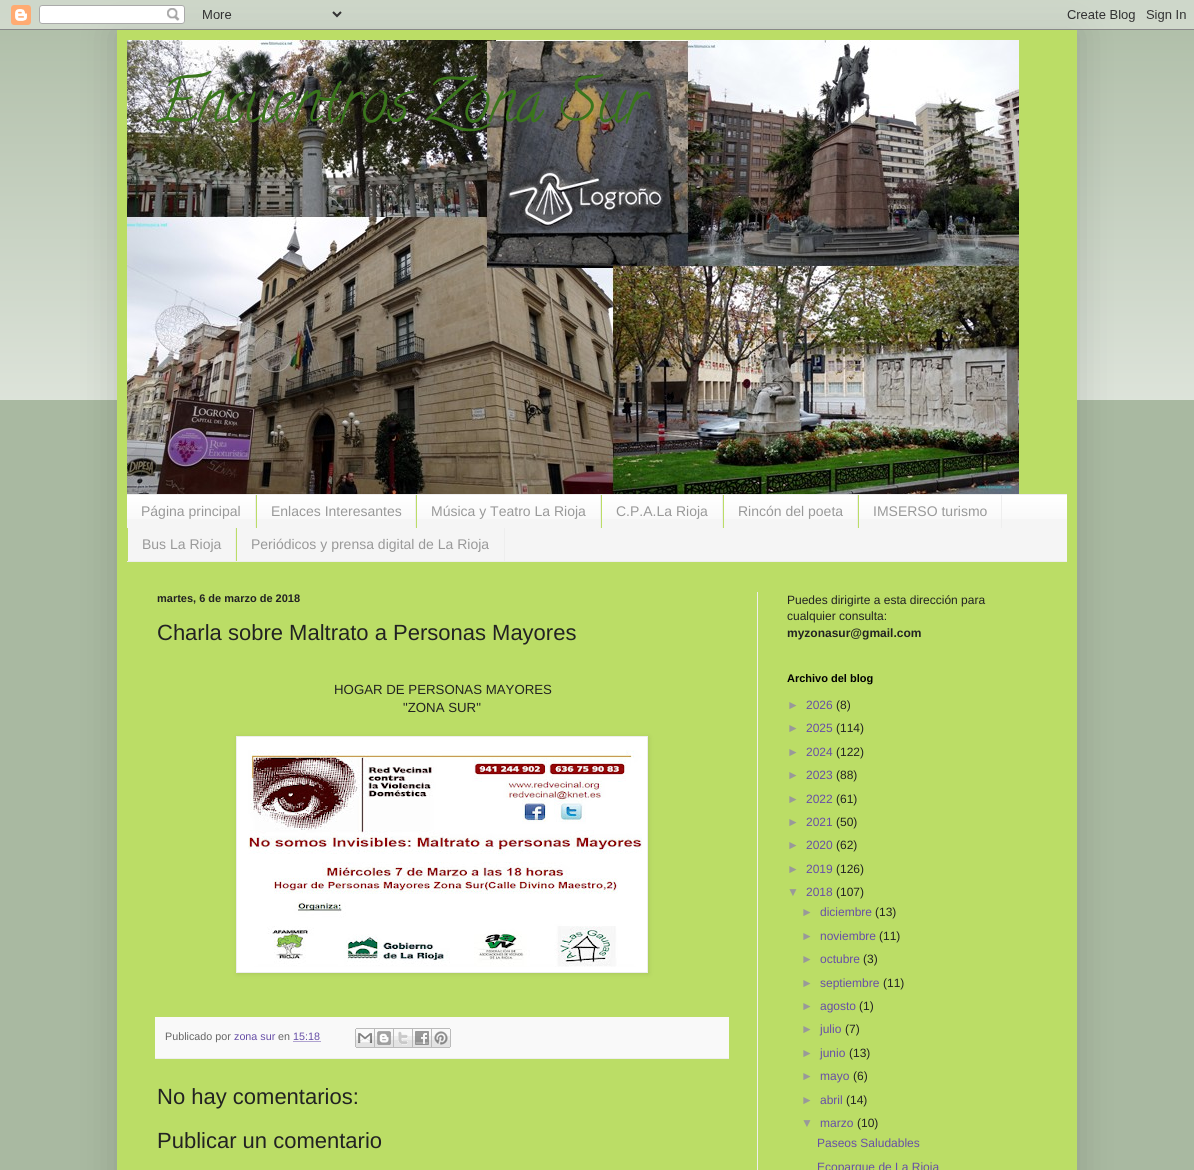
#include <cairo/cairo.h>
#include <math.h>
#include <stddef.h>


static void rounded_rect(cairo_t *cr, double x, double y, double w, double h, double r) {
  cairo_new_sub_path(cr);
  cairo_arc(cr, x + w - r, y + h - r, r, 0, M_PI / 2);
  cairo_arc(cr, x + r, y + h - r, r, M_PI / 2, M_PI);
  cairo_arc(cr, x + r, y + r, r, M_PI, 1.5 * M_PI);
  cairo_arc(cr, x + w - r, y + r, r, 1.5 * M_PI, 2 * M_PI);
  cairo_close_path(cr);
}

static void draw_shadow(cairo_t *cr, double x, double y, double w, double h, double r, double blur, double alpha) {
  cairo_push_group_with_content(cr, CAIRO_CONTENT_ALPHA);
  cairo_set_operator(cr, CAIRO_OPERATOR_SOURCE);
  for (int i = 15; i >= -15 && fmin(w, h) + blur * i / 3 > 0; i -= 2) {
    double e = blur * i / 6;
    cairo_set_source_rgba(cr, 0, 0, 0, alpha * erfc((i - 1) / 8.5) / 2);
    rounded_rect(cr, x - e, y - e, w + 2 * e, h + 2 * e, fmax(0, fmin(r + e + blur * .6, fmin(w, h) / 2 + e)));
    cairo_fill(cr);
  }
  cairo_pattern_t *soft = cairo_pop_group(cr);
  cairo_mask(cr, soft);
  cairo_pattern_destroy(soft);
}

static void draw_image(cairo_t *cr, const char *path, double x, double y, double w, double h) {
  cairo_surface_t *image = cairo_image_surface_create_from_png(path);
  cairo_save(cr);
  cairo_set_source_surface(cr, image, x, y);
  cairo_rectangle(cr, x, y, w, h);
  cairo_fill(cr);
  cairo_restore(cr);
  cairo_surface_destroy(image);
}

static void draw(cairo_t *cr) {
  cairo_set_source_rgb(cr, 169 / 255.0, 185 / 255.0, 161 / 255.0);
  cairo_paint(cr);
  draw_image(cr, "images/1.png", 0, 0, 1194, 400);
  cairo_set_source_rgb(cr, 0, 0, 0);
  draw_shadow(cr, 117, 30, 960, 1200, 0, 20, 0.15);
  draw_image(cr, "images/2.png", 0, 0, 1194, 30);
  cairo_set_source_rgb(cr, 187 / 255.0, 221 / 255.0, 102 / 255.0);
  cairo_rectangle(cr, 117, 30, 960, 1140);
  cairo_fill(cr);
  draw_image(cr, "images/3.png", 127, 40, 892, 454);
  cairo_set_source_rgb(cr, 245 / 255.0, 245 / 255.0, 245 / 255.0);
  cairo_rectangle(cr, 127, 496, 940, 65);
  cairo_fill(cr);
  draw_image(cr, "images/4.png", 127, 495, 940, 24);
  cairo_set_source_rgb(cr, 238 / 255.0, 238 / 255.0, 238 / 255.0);
  cairo_rectangle(cr, 127, 494, 940, 1);
  cairo_fill(cr);
  cairo_rectangle(cr, 127, 561, 940, 1);
  cairo_fill(cr);
  cairo_rectangle(cr, 255, 495, 1, 33);
  cairo_fill(cr);
  cairo_rectangle(cr, 415, 495, 1, 33);
  cairo_fill(cr);
  cairo_set_source_rgb(cr, 187 / 255.0, 221 / 255.0, 102 / 255.0);
  cairo_rectangle(cr, 256, 495, 1, 33);
  cairo_fill(cr);
  cairo_set_source_rgb(cr, 238 / 255.0, 238 / 255.0, 238 / 255.0);
  cairo_rectangle(cr, 600, 495, 1, 33);
  cairo_fill(cr);
  cairo_set_source_rgb(cr, 187 / 255.0, 221 / 255.0, 102 / 255.0);
  cairo_rectangle(cr, 416, 495, 1, 33);
  cairo_fill(cr);
  cairo_set_source_rgb(cr, 238 / 255.0, 238 / 255.0, 238 / 255.0);
  cairo_rectangle(cr, 722, 495, 1, 33);
  cairo_fill(cr);
  cairo_set_source_rgb(cr, 187 / 255.0, 221 / 255.0, 102 / 255.0);
  cairo_rectangle(cr, 601, 495, 1, 33);
  cairo_fill(cr);
  cairo_set_source_rgb(cr, 238 / 255.0, 238 / 255.0, 238 / 255.0);
  cairo_rectangle(cr, 857, 495, 1, 33);
  cairo_fill(cr);
  cairo_set_source_rgb(cr, 187 / 255.0, 221 / 255.0, 102 / 255.0);
  cairo_rectangle(cr, 723, 495, 1, 33);
  cairo_fill(cr);
  cairo_set_source_rgb(cr, 238 / 255.0, 238 / 255.0, 238 / 255.0);
  cairo_rectangle(cr, 1001, 495, 1, 33);
  cairo_fill(cr);
  cairo_set_source_rgb(cr, 187 / 255.0, 221 / 255.0, 102 / 255.0);
  cairo_rectangle(cr, 858, 495, 1, 33);
  cairo_fill(cr);
  cairo_set_source_rgb(cr, 238 / 255.0, 238 / 255.0, 238 / 255.0);
  cairo_rectangle(cr, 235, 528, 1, 33);
  cairo_fill(cr);
  cairo_set_source_rgb(cr, 187 / 255.0, 221 / 255.0, 102 / 255.0);
  cairo_rectangle(cr, 127, 528, 1, 33);
  cairo_fill(cr);
  cairo_set_source_rgb(cr, 238 / 255.0, 238 / 255.0, 238 / 255.0);
  cairo_rectangle(cr, 504, 528, 1, 33);
  cairo_fill(cr);
  cairo_set_source_rgb(cr, 187 / 255.0, 221 / 255.0, 102 / 255.0);
  cairo_rectangle(cr, 236, 528, 1, 33);
  cairo_fill(cr);
  cairo_set_source_rgb(cr, 238 / 255.0, 238 / 255.0, 238 / 255.0);
  cairo_rectangle(cr, 757, 592, 1, 578);
  cairo_fill(cr);
  cairo_set_source_rgb(cr, 0, 0, 0);
  draw_shadow(cr, 237, 737, 412, 237, 0, 2.5, 0.1);
  cairo_set_source_rgb(cr, 1, 1, 1);
  cairo_rectangle(cr, 236.5, 736.5, 411, 236);
  cairo_fill_preserve(cr);
  cairo_set_source_rgb(cr, 238 / 255.0, 238 / 255.0, 238 / 255.0);
  cairo_set_line_width(cr, 1);
  cairo_stroke(cr);
  draw_image(cr, "images/5.png", 248, 750, 394, 217);
  cairo_set_source_rgb(cr, 249 / 255.0, 249 / 255.0, 249 / 255.0);
  cairo_rectangle(cr, 155, 1017, 574, 41);
  cairo_fill(cr);
  cairo_set_source_rgb(cr, 238 / 255.0, 238 / 255.0, 238 / 255.0);
  cairo_rectangle(cr, 155, 1058, 574, 1);
  cairo_fill(cr);
  cairo_new_path(cr);
  cairo_move_to(cr, 293.5, 1041.5);
  cairo_line_to(cr, 320.5, 1041.5);
  cairo_set_source_rgb(cr, 103 / 255.0, 78 / 255.0, 167 / 255.0);
  cairo_set_dash(cr, (double[]){1, 1}, 2, 0);
  cairo_stroke(cr);
  draw_image(cr, "images/6.png", 355, 1028, 20, 20);
  draw_image(cr, "images/7.png", 375, 1028, 19, 20);
  draw_image(cr, "images/8.png", 394, 1028, 19, 20);
  draw_image(cr, "images/9.png", 413, 1028, 19, 20);
  draw_image(cr, "images/10.png", 432, 1028, 19, 20);
  cairo_select_font_face(cr, "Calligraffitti", CAIRO_FONT_SLANT_NORMAL, CAIRO_FONT_WEIGHT_NORMAL);
  cairo_set_font_size(cr, 60);
  cairo_set_source_rgb(cr, 58 / 255.0, 117 / 255.0, 28 / 255.0);
  cairo_move_to(cr, 157, 120);
  cairo_show_text(cr, "Encuentros Zona Sur");
  cairo_select_font_face(cr, "Liberation Sans", CAIRO_FONT_SLANT_NORMAL, CAIRO_FONT_WEIGHT_NORMAL);
  cairo_set_font_size(cr, 14);
  cairo_set_source_rgb(cr, 153 / 255.0, 153 / 255.0, 153 / 255.0);
  cairo_move_to(cr, 141, 516);
  cairo_show_text(cr, "Página principal");
  cairo_move_to(cr, 271, 516);
  cairo_show_text(cr, "Enlaces Interesantes");
  cairo_move_to(cr, 431, 516);
  cairo_show_text(cr, "Música y Teatro La Rioja");
  cairo_move_to(cr, 616, 516);
  cairo_show_text(cr, "C.P.A.La Rioja");
  cairo_move_to(cr, 738, 516);
  cairo_show_text(cr, "Rincón del poeta");
  cairo_move_to(cr, 873, 516);
  cairo_show_text(cr, "IMSERSO turismo");
  cairo_move_to(cr, 142, 549);
  cairo_show_text(cr, "Bus La Rioja");
  cairo_move_to(cr, 251, 549);
  cairo_show_text(cr, "Periódicos y prensa digital de La Rioja");
  cairo_select_font_face(cr, "Liberation Sans", CAIRO_FONT_SLANT_NORMAL, CAIRO_FONT_WEIGHT_BOLD);
  cairo_set_font_size(cr, 11);
  cairo_set_source_rgb(cr, 34 / 255.0, 34 / 255.0, 34 / 255.0);
  cairo_move_to(cr, 157, 602);
  cairo_show_text(cr, "martes, 6 de marzo de 2018");
  cairo_select_font_face(cr, "Liberation Sans", CAIRO_FONT_SLANT_NORMAL, CAIRO_FONT_WEIGHT_NORMAL);
  cairo_set_font_size(cr, 22);
  cairo_move_to(cr, 157, 640);
  cairo_show_text(cr, "Charla sobre Maltrato a Personas Mayores");
  cairo_set_font_size(cr, 13.25);
  cairo_move_to(cr, 334, 694);
  cairo_show_text(cr, "HOGAR DE PERSONAS MAYORES");
  cairo_move_to(cr, 403, 712);
  cairo_show_text(cr, "\"ZONA SUR\"");
  cairo_set_font_size(cr, 10.75);
  cairo_set_source_rgb(cr, 102 / 255.0, 102 / 255.0, 102 / 255.0);
  cairo_move_to(cr, 165, 1040);
  cairo_show_text(cr, "Publicado por");
  cairo_set_source_rgb(cr, 103 / 255.0, 78 / 255.0, 167 / 255.0);
  cairo_move_to(cr, 234, 1040);
  cairo_show_text(cr, "zona sur");
  cairo_set_source_rgb(cr, 102 / 255.0, 102 / 255.0, 102 / 255.0);
  cairo_move_to(cr, 278, 1040);
  cairo_show_text(cr, "en");
  cairo_set_source_rgb(cr, 103 / 255.0, 78 / 255.0, 167 / 255.0);
  cairo_move_to(cr, 293, 1040);
  cairo_show_text(cr, "15:18");
  cairo_set_font_size(cr, 22);
  cairo_set_source_rgb(cr, 34 / 255.0, 34 / 255.0, 34 / 255.0);
  cairo_move_to(cr, 157, 1104);
  cairo_show_text(cr, "No hay comentarios:");
  cairo_move_to(cr, 157, 1148);
  cairo_show_text(cr, "Publicar un comentario");
  cairo_set_font_size(cr, 12);
  cairo_move_to(cr, 787, 604);
  cairo_show_text(cr, "Puedes dirigirte a esta dirección para");
  cairo_move_to(cr, 787, 620);
  cairo_show_text(cr, "cualquier consulta:");
  cairo_select_font_face(cr, "Liberation Sans", CAIRO_FONT_SLANT_NORMAL, CAIRO_FONT_WEIGHT_BOLD);
  cairo_move_to(cr, 787, 637);
  cairo_show_text(cr, "myzonasur@gmail.com");
  cairo_set_font_size(cr, 11);
  cairo_set_source_rgb(cr, 0, 0, 0);
  cairo_move_to(cr, 787, 682);
  cairo_show_text(cr, "Archivo del blog");
  cairo_select_font_face(cr, "Liberation Sans", CAIRO_FONT_SLANT_NORMAL, CAIRO_FONT_WEIGHT_NORMAL);
  cairo_set_font_size(cr, 12);
  cairo_set_source_rgb(cr, 153 / 255.0, 153 / 255.0, 153 / 255.0);
  cairo_move_to(cr, 787, 709);
  cairo_show_text(cr, "►");
  cairo_set_source_rgb(cr, 103 / 255.0, 78 / 255.0, 167 / 255.0);
  cairo_move_to(cr, 806, 709);
  cairo_show_text(cr, "2026");
  cairo_set_source_rgb(cr, 34 / 255.0, 34 / 255.0, 34 / 255.0);
  cairo_move_to(cr, 836, 709);
  cairo_show_text(cr, "(8)");
  cairo_set_source_rgb(cr, 153 / 255.0, 153 / 255.0, 153 / 255.0);
  cairo_move_to(cr, 787, 732);
  cairo_show_text(cr, "►");
  cairo_set_source_rgb(cr, 103 / 255.0, 78 / 255.0, 167 / 255.0);
  cairo_move_to(cr, 806, 732);
  cairo_show_text(cr, "2025");
  cairo_set_source_rgb(cr, 34 / 255.0, 34 / 255.0, 34 / 255.0);
  cairo_move_to(cr, 836, 732);
  cairo_show_text(cr, "(114)");
  cairo_set_source_rgb(cr, 153 / 255.0, 153 / 255.0, 153 / 255.0);
  cairo_move_to(cr, 787, 756);
  cairo_show_text(cr, "►");
  cairo_set_source_rgb(cr, 103 / 255.0, 78 / 255.0, 167 / 255.0);
  cairo_move_to(cr, 806, 756);
  cairo_show_text(cr, "2024");
  cairo_set_source_rgb(cr, 34 / 255.0, 34 / 255.0, 34 / 255.0);
  cairo_move_to(cr, 836, 756);
  cairo_show_text(cr, "(122)");
  cairo_set_source_rgb(cr, 153 / 255.0, 153 / 255.0, 153 / 255.0);
  cairo_move_to(cr, 787, 779);
  cairo_show_text(cr, "►");
  cairo_set_source_rgb(cr, 103 / 255.0, 78 / 255.0, 167 / 255.0);
  cairo_move_to(cr, 806, 779);
  cairo_show_text(cr, "2023");
  cairo_set_source_rgb(cr, 34 / 255.0, 34 / 255.0, 34 / 255.0);
  cairo_move_to(cr, 836, 779);
  cairo_show_text(cr, "(88)");
  cairo_set_source_rgb(cr, 153 / 255.0, 153 / 255.0, 153 / 255.0);
  cairo_move_to(cr, 787, 803);
  cairo_show_text(cr, "►");
  cairo_set_source_rgb(cr, 103 / 255.0, 78 / 255.0, 167 / 255.0);
  cairo_move_to(cr, 806, 803);
  cairo_show_text(cr, "2022");
  cairo_set_source_rgb(cr, 34 / 255.0, 34 / 255.0, 34 / 255.0);
  cairo_move_to(cr, 836, 803);
  cairo_show_text(cr, "(61)");
  cairo_set_source_rgb(cr, 153 / 255.0, 153 / 255.0, 153 / 255.0);
  cairo_move_to(cr, 787, 826);
  cairo_show_text(cr, "►");
  cairo_set_source_rgb(cr, 103 / 255.0, 78 / 255.0, 167 / 255.0);
  cairo_move_to(cr, 806, 826);
  cairo_show_text(cr, "2021");
  cairo_set_source_rgb(cr, 34 / 255.0, 34 / 255.0, 34 / 255.0);
  cairo_move_to(cr, 836, 826);
  cairo_show_text(cr, "(50)");
  cairo_set_source_rgb(cr, 153 / 255.0, 153 / 255.0, 153 / 255.0);
  cairo_move_to(cr, 787, 849);
  cairo_show_text(cr, "►");
  cairo_set_source_rgb(cr, 103 / 255.0, 78 / 255.0, 167 / 255.0);
  cairo_move_to(cr, 806, 849);
  cairo_show_text(cr, "2020");
  cairo_set_source_rgb(cr, 34 / 255.0, 34 / 255.0, 34 / 255.0);
  cairo_move_to(cr, 836, 849);
  cairo_show_text(cr, "(62)");
  cairo_set_source_rgb(cr, 153 / 255.0, 153 / 255.0, 153 / 255.0);
  cairo_move_to(cr, 787, 873);
  cairo_show_text(cr, "►");
  cairo_set_source_rgb(cr, 103 / 255.0, 78 / 255.0, 167 / 255.0);
  cairo_move_to(cr, 806, 873);
  cairo_show_text(cr, "2019");
  cairo_set_source_rgb(cr, 34 / 255.0, 34 / 255.0, 34 / 255.0);
  cairo_move_to(cr, 836, 873);
  cairo_show_text(cr, "(126)");
  cairo_set_source_rgb(cr, 153 / 255.0, 153 / 255.0, 153 / 255.0);
  cairo_move_to(cr, 787, 896);
  cairo_show_text(cr, "▼");
  cairo_set_source_rgb(cr, 103 / 255.0, 78 / 255.0, 167 / 255.0);
  cairo_move_to(cr, 806, 896);
  cairo_show_text(cr, "2018");
  cairo_set_source_rgb(cr, 34 / 255.0, 34 / 255.0, 34 / 255.0);
  cairo_move_to(cr, 836, 896);
  cairo_show_text(cr, "(107)");
  cairo_set_source_rgb(cr, 153 / 255.0, 153 / 255.0, 153 / 255.0);
  cairo_move_to(cr, 801, 916);
  cairo_show_text(cr, "►");
  cairo_set_source_rgb(cr, 103 / 255.0, 78 / 255.0, 167 / 255.0);
  cairo_move_to(cr, 820, 916);
  cairo_show_text(cr, "diciembre");
  cairo_set_source_rgb(cr, 34 / 255.0, 34 / 255.0, 34 / 255.0);
  cairo_move_to(cr, 875, 916);
  cairo_show_text(cr, "(13)");
  cairo_set_source_rgb(cr, 153 / 255.0, 153 / 255.0, 153 / 255.0);
  cairo_move_to(cr, 801, 940);
  cairo_show_text(cr, "►");
  cairo_set_source_rgb(cr, 103 / 255.0, 78 / 255.0, 167 / 255.0);
  cairo_move_to(cr, 820, 940);
  cairo_show_text(cr, "noviembre");
  cairo_set_source_rgb(cr, 34 / 255.0, 34 / 255.0, 34 / 255.0);
  cairo_move_to(cr, 879, 940);
  cairo_show_text(cr, "(11)");
  cairo_set_source_rgb(cr, 153 / 255.0, 153 / 255.0, 153 / 255.0);
  cairo_move_to(cr, 801, 963);
  cairo_show_text(cr, "►");
  cairo_set_source_rgb(cr, 103 / 255.0, 78 / 255.0, 167 / 255.0);
  cairo_move_to(cr, 820, 963);
  cairo_show_text(cr, "octubre");
  cairo_set_source_rgb(cr, 34 / 255.0, 34 / 255.0, 34 / 255.0);
  cairo_move_to(cr, 863, 963);
  cairo_show_text(cr, "(3)");
  cairo_set_source_rgb(cr, 153 / 255.0, 153 / 255.0, 153 / 255.0);
  cairo_move_to(cr, 801, 987);
  cairo_show_text(cr, "►");
  cairo_set_source_rgb(cr, 103 / 255.0, 78 / 255.0, 167 / 255.0);
  cairo_move_to(cr, 820, 987);
  cairo_show_text(cr, "septiembre");
  cairo_set_source_rgb(cr, 34 / 255.0, 34 / 255.0, 34 / 255.0);
  cairo_move_to(cr, 883, 987);
  cairo_show_text(cr, "(11)");
  cairo_set_source_rgb(cr, 153 / 255.0, 153 / 255.0, 153 / 255.0);
  cairo_move_to(cr, 801, 1010);
  cairo_show_text(cr, "►");
  cairo_set_source_rgb(cr, 103 / 255.0, 78 / 255.0, 167 / 255.0);
  cairo_move_to(cr, 820, 1010);
  cairo_show_text(cr, "agosto");
  cairo_set_source_rgb(cr, 34 / 255.0, 34 / 255.0, 34 / 255.0);
  cairo_move_to(cr, 859, 1010);
  cairo_show_text(cr, "(1)");
  cairo_set_source_rgb(cr, 153 / 255.0, 153 / 255.0, 153 / 255.0);
  cairo_move_to(cr, 801, 1033);
  cairo_show_text(cr, "►");
  cairo_set_source_rgb(cr, 103 / 255.0, 78 / 255.0, 167 / 255.0);
  cairo_move_to(cr, 820, 1033);
  cairo_show_text(cr, "julio");
  cairo_set_source_rgb(cr, 34 / 255.0, 34 / 255.0, 34 / 255.0);
  cairo_move_to(cr, 845, 1033);
  cairo_show_text(cr, "(7)");
  cairo_set_source_rgb(cr, 153 / 255.0, 153 / 255.0, 153 / 255.0);
  cairo_move_to(cr, 801, 1057);
  cairo_show_text(cr, "►");
  cairo_set_source_rgb(cr, 103 / 255.0, 78 / 255.0, 167 / 255.0);
  cairo_move_to(cr, 820, 1057);
  cairo_show_text(cr, "junio");
  cairo_set_source_rgb(cr, 34 / 255.0, 34 / 255.0, 34 / 255.0);
  cairo_move_to(cr, 849, 1057);
  cairo_show_text(cr, "(13)");
  cairo_set_source_rgb(cr, 153 / 255.0, 153 / 255.0, 153 / 255.0);
  cairo_move_to(cr, 801, 1080);
  cairo_show_text(cr, "►");
  cairo_set_source_rgb(cr, 103 / 255.0, 78 / 255.0, 167 / 255.0);
  cairo_move_to(cr, 820, 1080);
  cairo_show_text(cr, "mayo");
  cairo_set_source_rgb(cr, 34 / 255.0, 34 / 255.0, 34 / 255.0);
  cairo_move_to(cr, 853, 1080);
  cairo_show_text(cr, "(6)");
  cairo_set_source_rgb(cr, 153 / 255.0, 153 / 255.0, 153 / 255.0);
  cairo_move_to(cr, 801, 1104);
  cairo_show_text(cr, "►");
  cairo_set_source_rgb(cr, 103 / 255.0, 78 / 255.0, 167 / 255.0);
  cairo_move_to(cr, 820, 1104);
  cairo_show_text(cr, "abril");
  cairo_set_source_rgb(cr, 34 / 255.0, 34 / 255.0, 34 / 255.0);
  cairo_move_to(cr, 846, 1104);
  cairo_show_text(cr, "(14)");
  cairo_set_source_rgb(cr, 153 / 255.0, 153 / 255.0, 153 / 255.0);
  cairo_move_to(cr, 801, 1127);
  cairo_show_text(cr, "▼");
  cairo_set_source_rgb(cr, 103 / 255.0, 78 / 255.0, 167 / 255.0);
  cairo_move_to(cr, 820, 1127);
  cairo_show_text(cr, "marzo");
  cairo_set_source_rgb(cr, 34 / 255.0, 34 / 255.0, 34 / 255.0);
  cairo_move_to(cr, 857, 1127);
  cairo_show_text(cr, "(10)");
  cairo_set_source_rgb(cr, 103 / 255.0, 78 / 255.0, 167 / 255.0);
  cairo_move_to(cr, 817, 1147);
  cairo_show_text(cr, "Paseos Saludables");
  cairo_move_to(cr, 817, 1171);
  cairo_show_text(cr, "Ecoparque de La Rioja");
}

int main(void) {
  cairo_surface_t *surface = cairo_image_surface_create(CAIRO_FORMAT_RGB24, 1194, 1170);
  cairo_t *cr = cairo_create(surface);
  cairo_font_options_t *options = cairo_font_options_create();
  cairo_font_options_set_hint_metrics(options, CAIRO_HINT_METRICS_OFF);
  cairo_font_options_set_hint_style(options, CAIRO_HINT_STYLE_NONE);
  cairo_set_font_options(cr, options);
  cairo_set_miter_limit(cr, 4);
  draw(cr);
  cairo_surface_write_to_png(surface, "out.png");
  cairo_font_options_destroy(options);
  cairo_destroy(cr);
  cairo_surface_destroy(surface);
  return 0;
}
